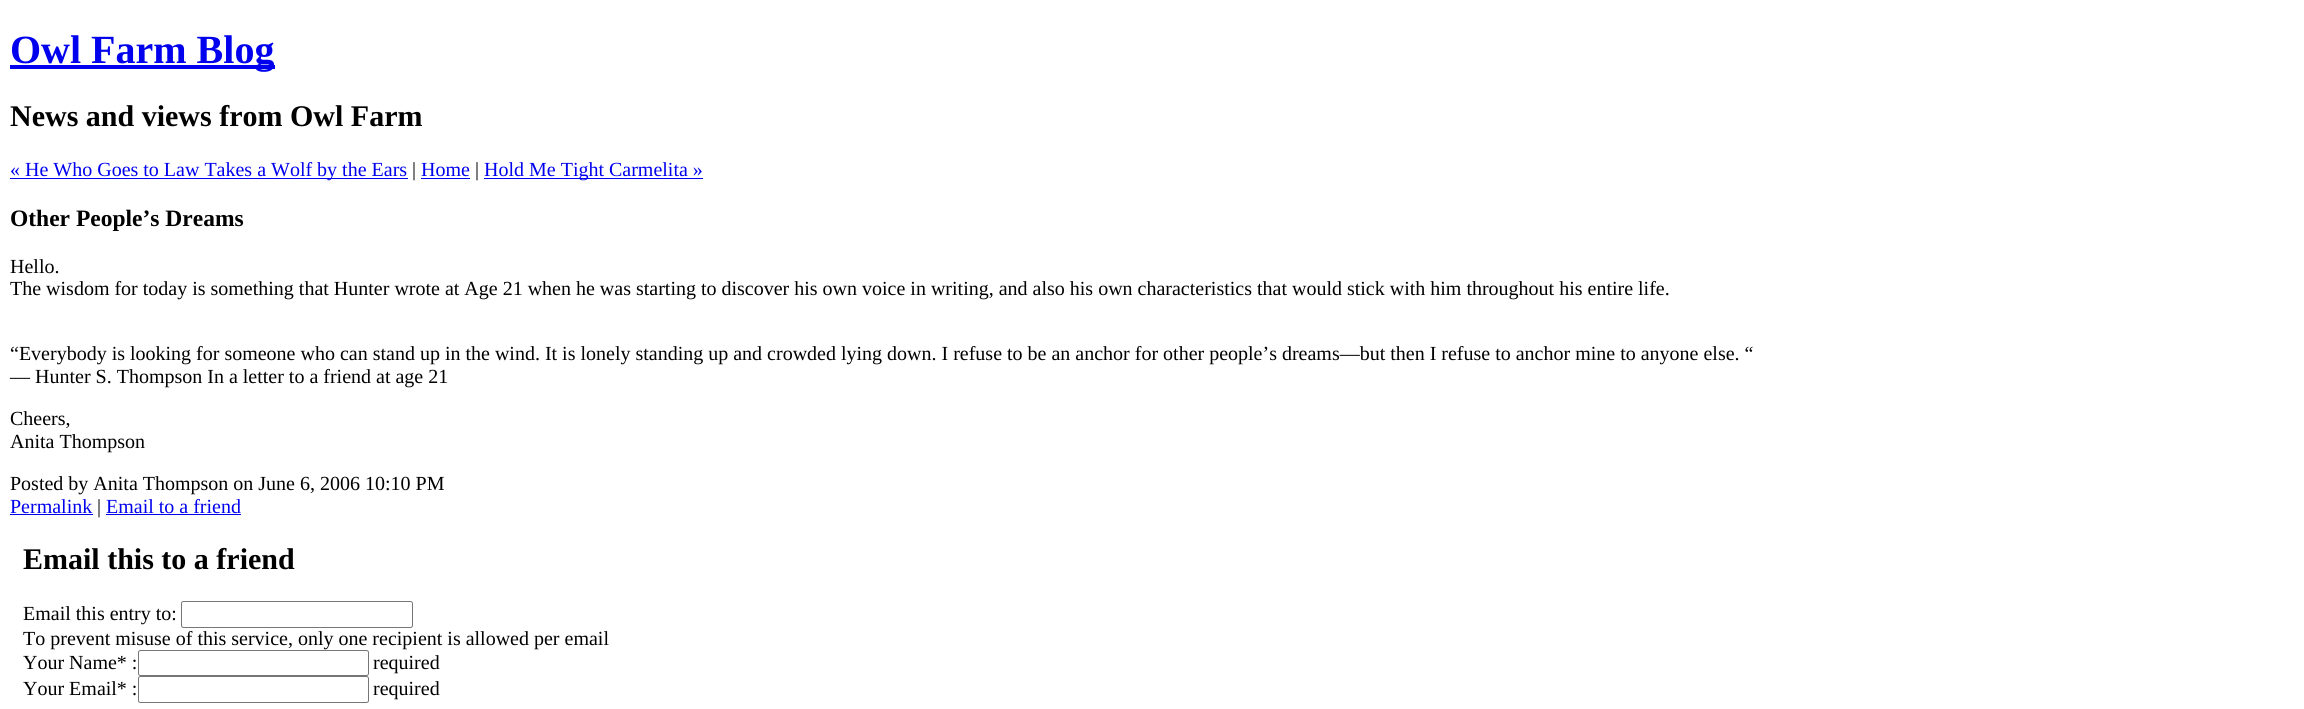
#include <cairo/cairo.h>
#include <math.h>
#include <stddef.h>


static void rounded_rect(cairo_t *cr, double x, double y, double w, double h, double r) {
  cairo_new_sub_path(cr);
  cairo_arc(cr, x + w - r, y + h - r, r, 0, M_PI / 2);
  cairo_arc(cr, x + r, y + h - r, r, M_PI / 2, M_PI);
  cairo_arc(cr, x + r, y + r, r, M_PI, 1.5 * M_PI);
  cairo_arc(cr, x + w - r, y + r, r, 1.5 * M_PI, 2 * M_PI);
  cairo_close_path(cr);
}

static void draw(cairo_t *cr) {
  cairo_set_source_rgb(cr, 1, 1, 1);
  cairo_paint(cr);
  cairo_set_source_rgb(cr, 0, 0, 238 / 255.0);
  cairo_rectangle(cr, 10, 65, 265, 4);
  cairo_fill(cr);
  cairo_rectangle(cr, 10, 178, 398, 1);
  cairo_fill(cr);
  cairo_rectangle(cr, 421, 178, 49, 1);
  cairo_fill(cr);
  cairo_rectangle(cr, 484, 178, 219, 1);
  cairo_fill(cr);
  cairo_rectangle(cr, 10, 514, 83, 1);
  cairo_fill(cr);
  cairo_rectangle(cr, 106, 514, 135, 1);
  cairo_fill(cr);
  rounded_rect(cr, 181.5, 601.5, 231, 26, 2);
  cairo_set_source_rgb(cr, 118 / 255.0, 118 / 255.0, 118 / 255.0);
  cairo_set_line_width(cr, 1);
  cairo_stroke(cr);
  rounded_rect(cr, 138.5, 650.5, 230, 25, 2);
  cairo_stroke(cr);
  rounded_rect(cr, 138.5, 676.5, 230, 26, 2);
  cairo_stroke(cr);
  cairo_select_font_face(cr, "Liberation Serif", CAIRO_FONT_SLANT_NORMAL, CAIRO_FONT_WEIGHT_BOLD);
  cairo_set_font_size(cr, 40);
  cairo_set_source_rgb(cr, 0, 0, 238 / 255.0);
  cairo_move_to(cr, 10, 63);
  cairo_show_text(cr, "Owl Farm Blog");
  cairo_set_font_size(cr, 30);
  cairo_set_source_rgb(cr, 0, 0, 0);
  cairo_move_to(cr, 10, 126);
  cairo_show_text(cr, "News and views from Owl Farm");
  cairo_select_font_face(cr, "Liberation Serif", CAIRO_FONT_SLANT_NORMAL, CAIRO_FONT_WEIGHT_NORMAL);
  cairo_set_font_size(cr, 20);
  cairo_set_source_rgb(cr, 0, 0, 238 / 255.0);
  cairo_move_to(cr, 10, 176);
  cairo_show_text(cr, "« He Who Goes to Law Takes a Wolf by the Ears");
  cairo_set_source_rgb(cr, 0, 0, 0);
  cairo_move_to(cr, 412, 176);
  cairo_show_text(cr, "|");
  cairo_set_source_rgb(cr, 0, 0, 238 / 255.0);
  cairo_move_to(cr, 421, 176);
  cairo_show_text(cr, "Home");
  cairo_set_source_rgb(cr, 0, 0, 0);
  cairo_move_to(cr, 475, 176);
  cairo_show_text(cr, "|");
  cairo_set_source_rgb(cr, 0, 0, 238 / 255.0);
  cairo_move_to(cr, 484, 176);
  cairo_show_text(cr, "Hold Me Tight Carmelita »");
  cairo_select_font_face(cr, "Liberation Serif", CAIRO_FONT_SLANT_NORMAL, CAIRO_FONT_WEIGHT_BOLD);
  cairo_set_font_size(cr, 23.5);
  cairo_set_source_rgb(cr, 0, 0, 0);
  cairo_move_to(cr, 10, 226);
  cairo_show_text(cr, "Other People’s Dreams");
  cairo_select_font_face(cr, "Liberation Serif", CAIRO_FONT_SLANT_NORMAL, CAIRO_FONT_WEIGHT_NORMAL);
  cairo_set_font_size(cr, 20);
  cairo_move_to(cr, 10, 273);
  cairo_show_text(cr, "Hello.");
  cairo_move_to(cr, 10, 295);
  cairo_show_text(cr, "The wisdom for today is something that Hunter wrote at Age 21 when he was starting to discover his own voice in writing, and also his own characteristics that would stick with him throughout his entire life.");
  cairo_move_to(cr, 10, 360);
  cairo_show_text(cr, "“Everybody is looking for someone who can stand up in the wind. It is lonely standing up and crowded lying down. I refuse to be an anchor for other people’s dreams—but then I refuse to anchor mine to anyone else. “");
  cairo_move_to(cr, 10, 383);
  cairo_show_text(cr, "— Hunter S. Thompson In a letter to a friend at age 21");
  cairo_move_to(cr, 10, 425);
  cairo_show_text(cr, "Cheers,");
  cairo_move_to(cr, 10, 448);
  cairo_show_text(cr, "Anita Thompson");
  cairo_move_to(cr, 10, 490);
  cairo_show_text(cr, "Posted by Anita Thompson on June 6, 2006 10:10 PM");
  cairo_set_source_rgb(cr, 0, 0, 238 / 255.0);
  cairo_move_to(cr, 10, 513);
  cairo_show_text(cr, "Permalink");
  cairo_set_source_rgb(cr, 0, 0, 0);
  cairo_move_to(cr, 97, 513);
  cairo_show_text(cr, "|");
  cairo_set_source_rgb(cr, 0, 0, 238 / 255.0);
  cairo_move_to(cr, 106, 513);
  cairo_show_text(cr, "Email to a friend");
  cairo_select_font_face(cr, "Liberation Serif", CAIRO_FONT_SLANT_NORMAL, CAIRO_FONT_WEIGHT_BOLD);
  cairo_set_font_size(cr, 30);
  cairo_set_source_rgb(cr, 0, 0, 0);
  cairo_move_to(cr, 23, 569);
  cairo_show_text(cr, "Email this to a friend");
  cairo_select_font_face(cr, "Liberation Serif", CAIRO_FONT_SLANT_NORMAL, CAIRO_FONT_WEIGHT_NORMAL);
  cairo_set_font_size(cr, 20);
  cairo_move_to(cr, 23, 620);
  cairo_show_text(cr, "Email this entry to:");
  cairo_move_to(cr, 23, 645);
  cairo_show_text(cr, "To prevent misuse of this service, only one recipient is allowed per email");
  cairo_move_to(cr, 23, 669);
  cairo_show_text(cr, "Your Name* :");
  cairo_move_to(cr, 373, 669);
  cairo_show_text(cr, "required");
  cairo_move_to(cr, 23, 695);
  cairo_show_text(cr, "Your Email* :");
  cairo_move_to(cr, 373, 695);
  cairo_show_text(cr, "required");
}

int main(void) {
  cairo_surface_t *surface = cairo_image_surface_create(CAIRO_FORMAT_RGB24, 2304, 709);
  cairo_t *cr = cairo_create(surface);
  cairo_font_options_t *options = cairo_font_options_create();
  cairo_font_options_set_hint_metrics(options, CAIRO_HINT_METRICS_OFF);
  cairo_font_options_set_hint_style(options, CAIRO_HINT_STYLE_NONE);
  cairo_set_font_options(cr, options);
  cairo_set_miter_limit(cr, 4);
  draw(cr);
  cairo_surface_write_to_png(surface, "out.png");
  cairo_font_options_destroy(options);
  cairo_destroy(cr);
  cairo_surface_destroy(surface);
  return 0;
}
